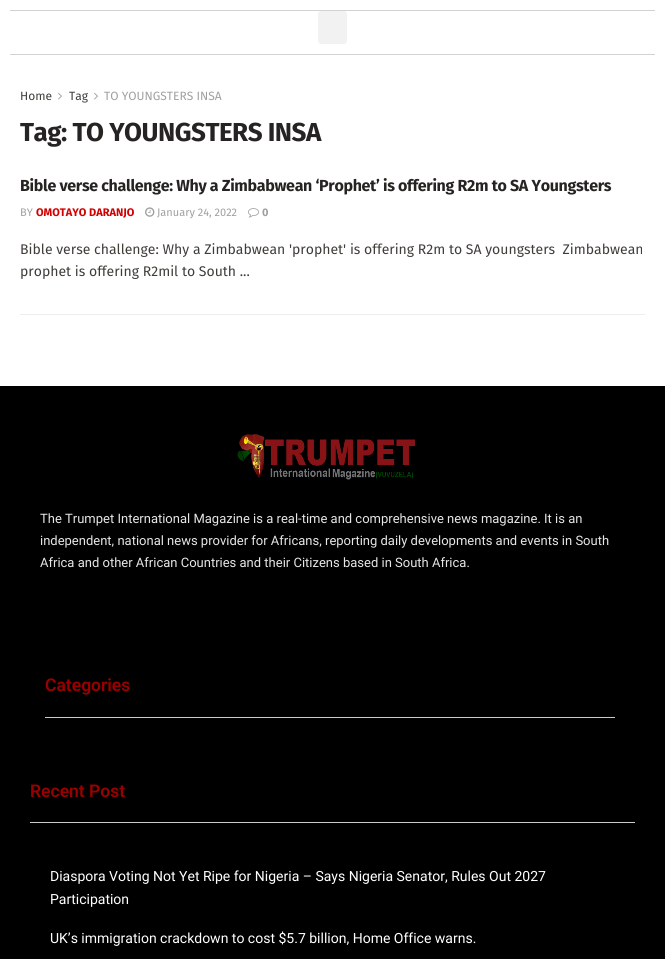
#include <cairo/cairo.h>
#include <math.h>
#include <stddef.h>


static void draw_spaced(cairo_t *cr, double x, double y, const char *s, double letter, double word) {
  cairo_move_to(cr, x, y);
  while (*s) {
    char ch[5] = {0};
    int n = 0;
    do ch[n++] = *s++; while ((*s & 0xC0) == 0x80);
    cairo_show_text(cr, ch);
    cairo_rel_move_to(cr, letter + word * (*ch == ' '), 0);
  }
}

static void rounded_rect(cairo_t *cr, double x, double y, double w, double h, double r) {
  cairo_new_sub_path(cr);
  cairo_arc(cr, x + w - r, y + h - r, r, 0, M_PI / 2);
  cairo_arc(cr, x + r, y + h - r, r, M_PI / 2, M_PI);
  cairo_arc(cr, x + r, y + r, r, M_PI, 1.5 * M_PI);
  cairo_arc(cr, x + w - r, y + r, r, 1.5 * M_PI, 2 * M_PI);
  cairo_close_path(cr);
}

static void draw_image(cairo_t *cr, const char *path, double x, double y, double w, double h) {
  cairo_surface_t *image = cairo_image_surface_create_from_png(path);
  cairo_save(cr);
  cairo_set_source_surface(cr, image, x, y);
  cairo_rectangle(cr, x, y, w, h);
  cairo_fill(cr);
  cairo_restore(cr);
  cairo_surface_destroy(image);
}

static void draw(cairo_t *cr) {
  cairo_set_source_rgb(cr, 1, 1, 1);
  cairo_paint(cr);
  cairo_set_source_rgb(cr, 210 / 255.0, 210 / 255.0, 210 / 255.0);
  cairo_rectangle(cr, 10, 10, 645, 1);
  cairo_fill(cr);
  cairo_rectangle(cr, 10, 54, 645, 1);
  cairo_fill(cr);
  cairo_set_source_rgb(cr, 242 / 255.0, 242 / 255.0, 242 / 255.0);
  rounded_rect(cr, 318, 11, 29, 33, 3);
  cairo_fill(cr);
  draw_image(cr, "images/1.png", 58, 92, 4, 8);
  draw_image(cr, "images/1.png", 94, 92, 4, 8);
  cairo_set_source_rgb(cr, 238 / 255.0, 238 / 255.0, 238 / 255.0);
  cairo_rectangle(cr, 20, 314, 625, 1);
  cairo_fill(cr);
  draw_image(cr, "images/2.png", 145, 207, 10, 10);
  draw_image(cr, "images/3.png", 248, 208, 11, 10);
  cairo_set_source_rgb(cr, 0, 0, 0);
  cairo_rectangle(cr, 0, 386, 665, 573);
  cairo_fill(cr);
  draw_image(cr, "images/4.png", 237, 434, 178, 46);
  cairo_set_source_rgb(cr, 203 / 255.0, 203 / 255.0, 203 / 255.0);
  cairo_rectangle(cr, 45, 717, 570, 1);
  cairo_fill(cr);
  cairo_rectangle(cr, 30, 822, 605, 1);
  cairo_fill(cr);
  cairo_select_font_face(cr, "Fira Sans", CAIRO_FONT_SLANT_NORMAL, CAIRO_FONT_WEIGHT_NORMAL);
  cairo_set_font_size(cr, 12);
  cairo_set_source_rgb(cr, 64 / 255.0, 61 / 255.0, 57 / 255.0);
  cairo_move_to(cr, 20, 100);
  cairo_show_text(cr, "Home");
  cairo_move_to(cr, 69, 100);
  cairo_show_text(cr, "Tag");
  cairo_set_source_rgb(cr, 160 / 255.0, 160 / 255.0, 160 / 255.0);
  cairo_move_to(cr, 104, 100);
  cairo_show_text(cr, "TO YOUNGSTERS INSA");
  cairo_select_font_face(cr, "Fira Sans", CAIRO_FONT_SLANT_NORMAL, CAIRO_FONT_WEIGHT_BOLD);
  cairo_set_font_size(cr, 26);
  cairo_set_source_rgb(cr, 37 / 255.0, 36 / 255.0, 34 / 255.0);
  draw_spaced(cr, 20, 141, "Tag: TO YOUNGSTERS INSA", -0.5, 0);
  cairo_set_font_size(cr, 16);
  draw_spaced(cr, 20, 191, "Bible verse challenge: Why a Zimbabwean ‘Prophet’ is offering R2m to SA Youngsters", -0.32, 0);
  cairo_select_font_face(cr, "Fira Sans", CAIRO_FONT_SLANT_NORMAL, CAIRO_FONT_WEIGHT_NORMAL);
  cairo_set_font_size(cr, 11);
  cairo_set_source_rgb(cr, 160 / 255.0, 160 / 255.0, 160 / 255.0);
  cairo_move_to(cr, 20, 216);
  cairo_show_text(cr, "BY");
  cairo_select_font_face(cr, "Fira Sans", CAIRO_FONT_SLANT_NORMAL, CAIRO_FONT_WEIGHT_BOLD);
  cairo_set_source_rgb(cr, 211 / 255.0, 0, 0);
  cairo_move_to(cr, 36, 216);
  cairo_show_text(cr, "OMOTAYO DARANJO");
  cairo_select_font_face(cr, "Fira Sans", CAIRO_FONT_SLANT_NORMAL, CAIRO_FONT_WEIGHT_NORMAL);
  cairo_set_source_rgb(cr, 160 / 255.0, 160 / 255.0, 160 / 255.0);
  cairo_move_to(cr, 157, 216);
  cairo_show_text(cr, "January 24, 2022");
  cairo_select_font_face(cr, "Fira Sans", CAIRO_FONT_SLANT_NORMAL, CAIRO_FONT_WEIGHT_BOLD);
  cairo_move_to(cr, 262, 216);
  cairo_show_text(cr, "0");
  cairo_select_font_face(cr, "Fira Sans", CAIRO_FONT_SLANT_NORMAL, CAIRO_FONT_WEIGHT_NORMAL);
  cairo_set_font_size(cr, 14);
  cairo_set_source_rgb(cr, 64 / 255.0, 61 / 255.0, 57 / 255.0);
  cairo_move_to(cr, 20, 254);
  cairo_show_text(cr, "Bible verse challenge: Why a Zimbabwean 'prophet' is offering R2m to SA youngsters  Zimbabwean");
  cairo_move_to(cr, 20, 276);
  cairo_show_text(cr, "prophet is offering R2mil to South ...");
  cairo_select_font_face(cr, "Roboto", CAIRO_FONT_SLANT_NORMAL, CAIRO_FONT_WEIGHT_NORMAL);
  cairo_set_font_size(cr, 13);
  cairo_set_source_rgb(cr, 230 / 255.0, 230 / 255.0, 230 / 255.0);
  cairo_move_to(cr, 40, 523);
  cairo_show_text(cr, "The Trumpet International Magazine is a real-time and comprehensive news magazine. It is an");
  cairo_move_to(cr, 40, 545);
  cairo_show_text(cr, "independent, national news provider for Africans, reporting daily developments and events in South");
  cairo_move_to(cr, 40, 567);
  cairo_show_text(cr, "Africa and other African Countries and their Citizens based in South Africa.");
  cairo_select_font_face(cr, "Roboto SemiBold", CAIRO_FONT_SLANT_NORMAL, CAIRO_FONT_WEIGHT_NORMAL);
  cairo_set_font_size(cr, 17.5);
  cairo_set_source_rgb(cr, 155 / 255.0, 0, 0);
  cairo_move_to(cr, 45, 691);
  cairo_show_text(cr, "Categories");
  cairo_move_to(cr, 30, 797);
  cairo_show_text(cr, "Recent Post");
  cairo_select_font_face(cr, "Roboto", CAIRO_FONT_SLANT_NORMAL, CAIRO_FONT_WEIGHT_NORMAL);
  cairo_set_font_size(cr, 14);
  cairo_set_source_rgb(cr, 1, 1, 1);
  cairo_move_to(cr, 50, 881);
  cairo_show_text(cr, "Diaspora Voting Not Yet Ripe for Nigeria – Says Nigeria Senator, Rules Out 2027");
  cairo_move_to(cr, 50, 904);
  cairo_show_text(cr, "Participation");
  cairo_move_to(cr, 50, 943);
  cairo_show_text(cr, "UK’s immigration crackdown to cost $5.7 billion, Home Office warns.");
}

int main(void) {
  cairo_surface_t *surface = cairo_image_surface_create(CAIRO_FORMAT_RGB24, 665, 959);
  cairo_t *cr = cairo_create(surface);
  cairo_font_options_t *options = cairo_font_options_create();
  cairo_font_options_set_hint_metrics(options, CAIRO_HINT_METRICS_OFF);
  cairo_font_options_set_hint_style(options, CAIRO_HINT_STYLE_NONE);
  cairo_set_font_options(cr, options);
  cairo_set_miter_limit(cr, 4);
  draw(cr);
  cairo_surface_write_to_png(surface, "out.png");
  cairo_font_options_destroy(options);
  cairo_destroy(cr);
  cairo_surface_destroy(surface);
  return 0;
}
